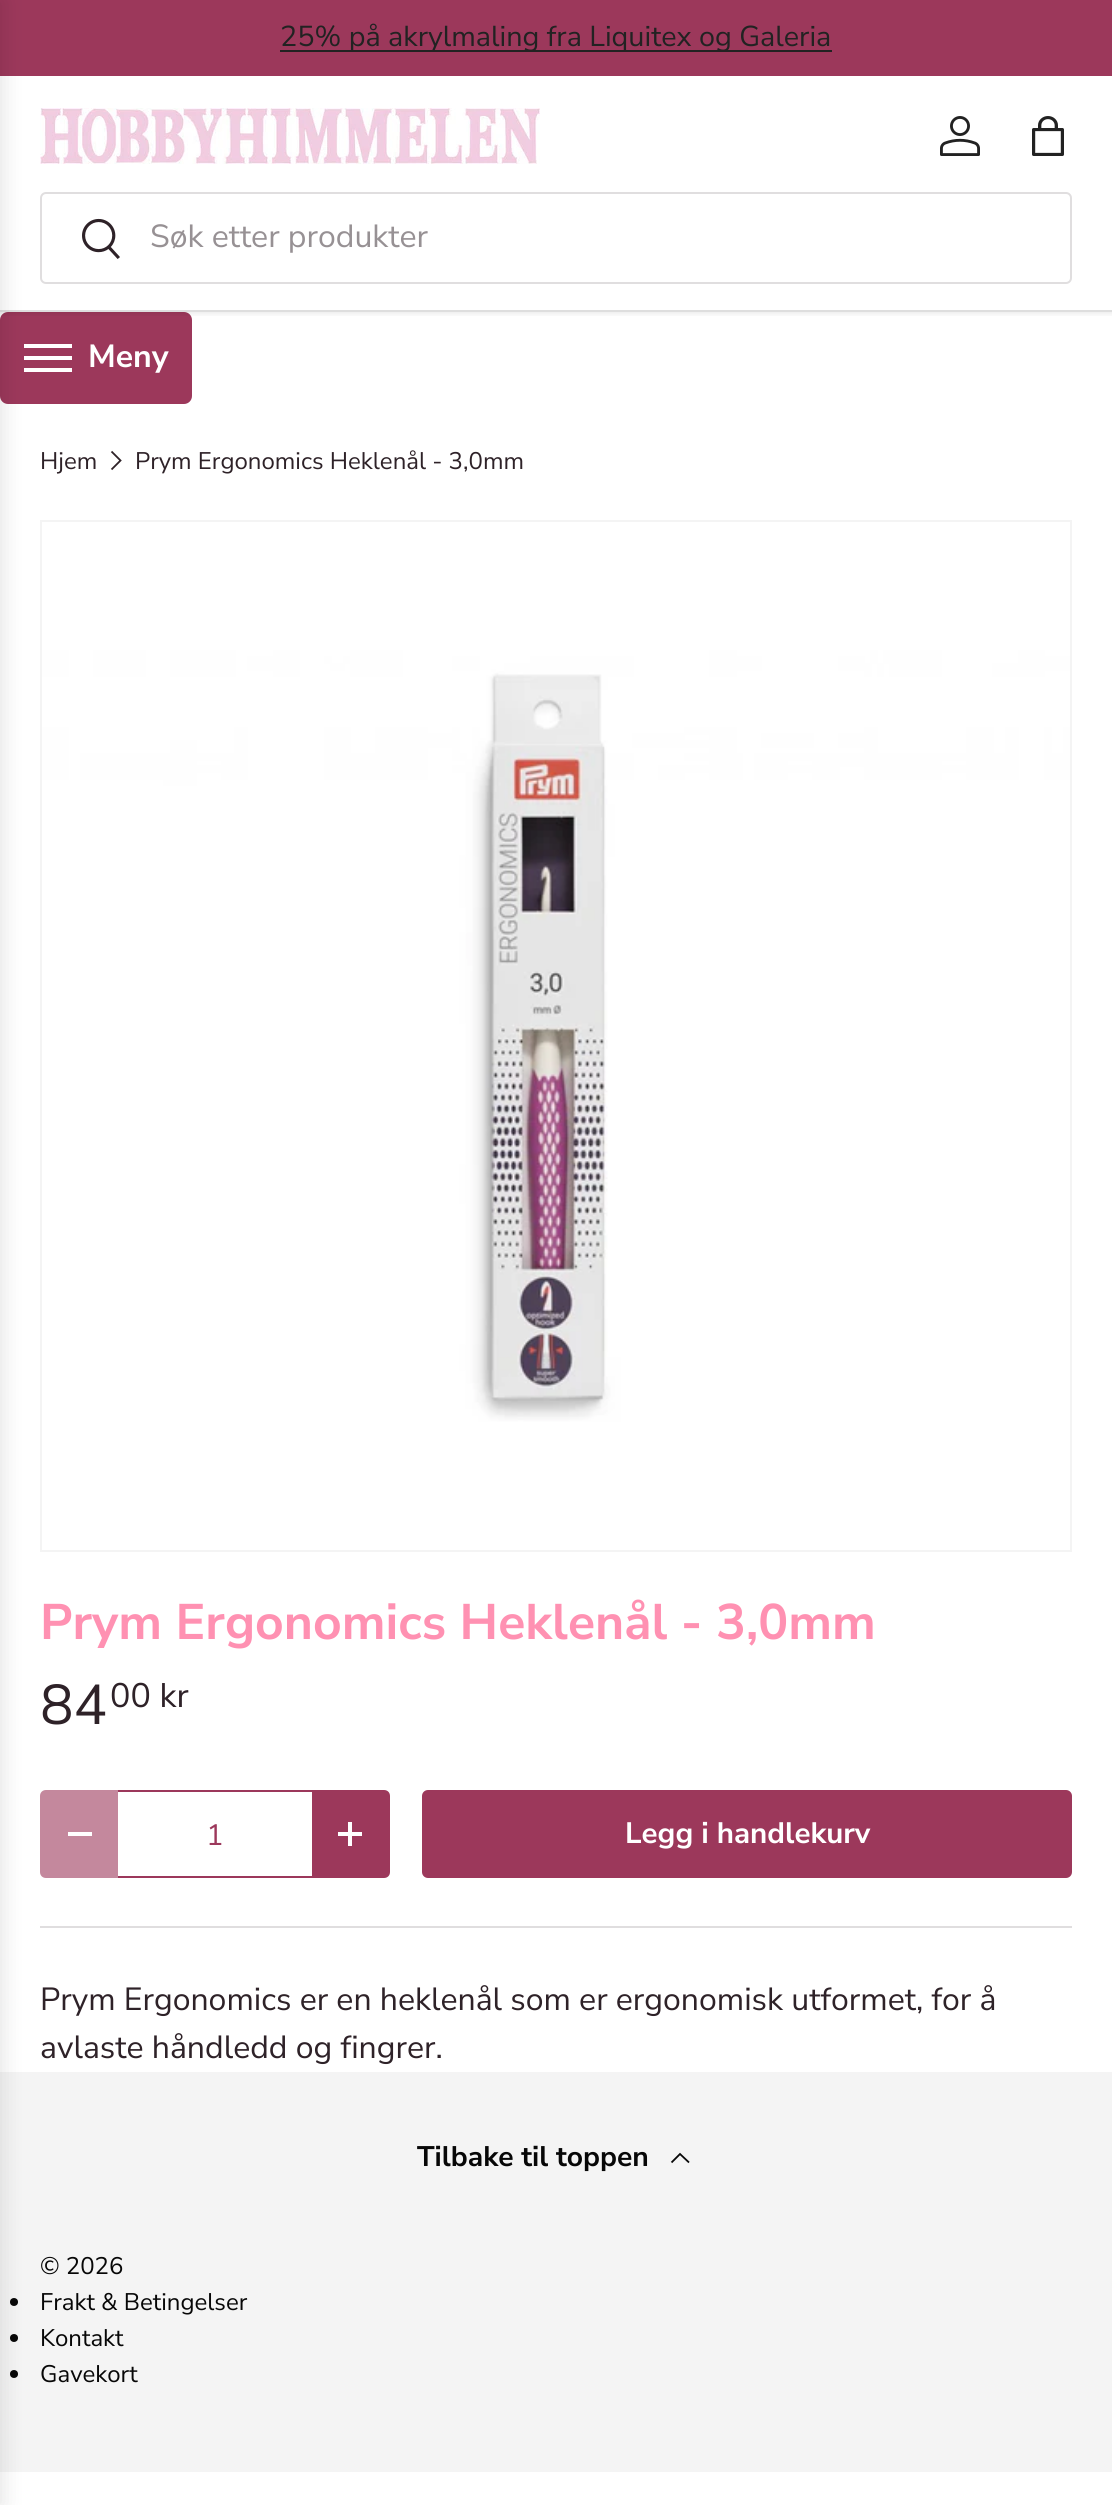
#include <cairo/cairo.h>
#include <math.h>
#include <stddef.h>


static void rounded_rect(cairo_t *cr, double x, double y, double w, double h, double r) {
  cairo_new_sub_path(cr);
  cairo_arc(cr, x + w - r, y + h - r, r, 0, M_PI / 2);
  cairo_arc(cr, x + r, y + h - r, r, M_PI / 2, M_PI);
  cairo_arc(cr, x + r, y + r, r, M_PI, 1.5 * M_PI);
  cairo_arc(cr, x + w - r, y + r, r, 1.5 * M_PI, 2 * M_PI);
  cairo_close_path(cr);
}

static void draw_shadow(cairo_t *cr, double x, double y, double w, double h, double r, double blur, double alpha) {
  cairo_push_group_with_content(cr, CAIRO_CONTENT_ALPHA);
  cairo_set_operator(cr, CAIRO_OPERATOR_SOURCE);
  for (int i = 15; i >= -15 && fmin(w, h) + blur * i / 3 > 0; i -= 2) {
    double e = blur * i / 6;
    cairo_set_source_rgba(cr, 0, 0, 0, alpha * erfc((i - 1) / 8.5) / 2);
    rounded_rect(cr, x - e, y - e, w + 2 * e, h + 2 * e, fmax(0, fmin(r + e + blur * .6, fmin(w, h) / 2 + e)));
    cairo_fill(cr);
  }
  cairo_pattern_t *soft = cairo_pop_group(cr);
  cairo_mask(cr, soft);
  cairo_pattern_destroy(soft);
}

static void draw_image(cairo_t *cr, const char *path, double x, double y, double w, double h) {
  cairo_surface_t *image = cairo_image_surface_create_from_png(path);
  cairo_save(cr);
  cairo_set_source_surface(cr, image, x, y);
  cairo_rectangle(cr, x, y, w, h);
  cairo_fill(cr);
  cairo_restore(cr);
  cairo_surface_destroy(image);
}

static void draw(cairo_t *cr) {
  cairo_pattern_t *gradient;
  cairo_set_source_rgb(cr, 1, 1, 1);
  cairo_paint(cr);
  cairo_set_source_rgb(cr, 156 / 255.0, 56 / 255.0, 91 / 255.0);
  rounded_rect(cr, 0, 312, 192, 92, 8);
  cairo_fill(cr);
  cairo_save(cr);
  cairo_rectangle(cr, 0, 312, 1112, 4);
  cairo_clip(cr);
  cairo_set_source_rgb(cr, 0, 0, 0);
  draw_shadow(cr, -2, 74, 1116, 240, 0, 3, 0.08);
  cairo_restore(cr);
  cairo_rectangle(cr, 0, 0, 1112, 76);
  cairo_fill(cr);
  cairo_set_source_rgb(cr, 34 / 255.0, 34 / 255.0, 34 / 255.0);
  cairo_rectangle(cr, 280, 50, 552, 2);
  cairo_fill(cr);
  draw_image(cr, "images/1.png", 40, 108, 500, 56);
  draw_image(cr, "images/2.png", 940, 116, 40, 40);
  draw_image(cr, "images/3.png", 1032, 116, 32, 40);
  rounded_rect(cr, 41, 193, 1030, 90, 5);
  cairo_set_source_rgb(cr, 224 / 255.0, 222 / 255.0, 223 / 255.0);
  cairo_stroke(cr);
  draw_image(cr, "images/4.png", 82, 218, 38, 41);
  cairo_set_source_rgb(cr, 222 / 255.0, 222 / 255.0, 222 / 255.0);
  cairo_rectangle(cr, 0, 310, 1112, 2);
  cairo_fill(cr);
  cairo_set_source_rgb(cr, 1, 1, 1);
  cairo_rectangle(cr, 24, 344, 48, 4);
  cairo_fill(cr);
  cairo_rectangle(cr, 24, 356, 48, 4);
  cairo_fill(cr);
  cairo_rectangle(cr, 24, 368, 48, 4);
  cairo_fill(cr);
  cairo_set_source_rgb(cr, 244 / 255.0, 244 / 255.0, 244 / 255.0);
  cairo_rectangle(cr, 0, 2072, 1112, 400);
  cairo_fill(cr);
  cairo_set_source_rgb(cr, 7 / 255.0, 7 / 255.0, 7 / 255.0);
  cairo_arc(cr, 14, 2302, 4, 0, 2 * M_PI);
  cairo_fill(cr);
  cairo_arc(cr, 14, 2338, 4, 0, 2 * M_PI);
  cairo_fill(cr);
  cairo_arc(cr, 14, 2374, 4, 0, 2 * M_PI);
  cairo_fill(cr);
  cairo_set_source_rgb(cr, 0, 0, 0);
  draw_shadow(cr, -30, 0, 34, 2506, 0, 10, 0.1);
  cairo_new_path(cr);
  cairo_move_to(cr, 111.5, 451.5);
  cairo_line_to(cr, 120.5, 460.5);
  cairo_line_to(cr, 111.5, 469.5);
  cairo_set_source_rgb(cr, 46 / 255.0, 34 / 255.0, 40 / 255.0);
  cairo_set_line_width(cr, 1.8);
  cairo_stroke(cr);
  cairo_set_source_rgb(cr, 244 / 255.0, 244 / 255.0, 244 / 255.0);
  cairo_rectangle(cr, 40, 520, 1032, 1032);
  cairo_fill(cr);
  draw_image(cr, "images/5.png", 42, 522, 1028, 1028);
  cairo_set_source_rgb(cr, 196 / 255.0, 136 / 255.0, 157 / 255.0);
  cairo_new_path(cr);
  cairo_move_to(cr, 46, 1790);
  cairo_line_to(cr, 118, 1790);
  cairo_line_to(cr, 118, 1878);
  cairo_line_to(cr, 46, 1878);
  cairo_curve_to(cr, 42.5, 1878, 40, 1875.5, 40, 1872);
  cairo_line_to(cr, 40, 1796);
  cairo_curve_to(cr, 40, 1792.5, 42.5, 1790, 46, 1790);
  cairo_close_path(cr);
  cairo_fill(cr);
  cairo_set_source_rgb(cr, 1, 1, 1);
  cairo_rectangle(cr, 68, 1832, 24, 4);
  cairo_fill(cr);
  cairo_set_source_rgb(cr, 156 / 255.0, 56 / 255.0, 91 / 255.0);
  cairo_rectangle(cr, 118, 1876, 194, 2);
  cairo_fill(cr);
  cairo_rectangle(cr, 118, 1790, 194, 2);
  cairo_fill(cr);
  cairo_new_path(cr);
  cairo_move_to(cr, 312, 1790);
  cairo_line_to(cr, 384, 1790);
  cairo_curve_to(cr, 387.5, 1790, 390, 1792.5, 390, 1796);
  cairo_line_to(cr, 390, 1872);
  cairo_curve_to(cr, 390, 1875.5, 387.5, 1878, 384, 1878);
  cairo_line_to(cr, 312, 1878);
  cairo_close_path(cr);
  cairo_fill(cr);
  cairo_set_source_rgb(cr, 1, 1, 1);
  cairo_rectangle(cr, 338, 1832, 24, 4);
  cairo_fill(cr);
  cairo_rectangle(cr, 348, 1822, 4, 24);
  cairo_fill(cr);
  gradient = cairo_pattern_create_linear(-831, 1603, 1025, 2065);
  cairo_pattern_add_color_stop_rgba(gradient, 0.6, 176 / 255.0, 96 / 255.0, 124 / 255.0, 1);
  cairo_pattern_add_color_stop_rgba(gradient, 0.6, 156 / 255.0, 56 / 255.0, 91 / 255.0, 1);
  cairo_pattern_add_color_stop_rgba(gradient, 1, 156 / 255.0, 56 / 255.0, 91 / 255.0, 1);
  cairo_set_source(cr, gradient);
  cairo_pattern_destroy(gradient);
  rounded_rect(cr, 422, 1790, 650, 88, 6);
  cairo_fill(cr);
  cairo_set_source_rgb(cr, 224 / 255.0, 222 / 255.0, 223 / 255.0);
  cairo_rectangle(cr, 40, 1926, 1032, 2);
  cairo_fill(cr);
  cairo_new_path(cr);
  cairo_move_to(cr, 671.5, 2162.5);
  cairo_line_to(cr, 680, 2154);
  cairo_line_to(cr, 689, 2162.5);
  cairo_set_source_rgb(cr, 7 / 255.0, 7 / 255.0, 7 / 255.0);
  cairo_stroke(cr);
  cairo_select_font_face(cr, "Nunito Sans", CAIRO_FONT_SLANT_NORMAL, CAIRO_FONT_WEIGHT_NORMAL);
  cairo_set_font_size(cr, 28.75);
  cairo_set_source_rgb(cr, 34 / 255.0, 34 / 255.0, 34 / 255.0);
  cairo_move_to(cr, 280, 46);
  cairo_show_text(cr, "25% på akrylmaling fra Liquitex og Galeria");
  cairo_set_font_size(cr, 32);
  cairo_set_source_rgb(cr, 151 / 255.0, 145 / 255.0, 148 / 255.0);
  cairo_move_to(cr, 150, 247);
  cairo_show_text(cr, "Søk etter produkter");
  cairo_select_font_face(cr, "Nunito Sans", CAIRO_FONT_SLANT_NORMAL, CAIRO_FONT_WEIGHT_BOLD);
  cairo_set_source_rgb(cr, 1, 1, 1);
  cairo_move_to(cr, 88, 367);
  cairo_show_text(cr, "Meny");
  cairo_select_font_face(cr, "Nunito Sans", CAIRO_FONT_SLANT_NORMAL, CAIRO_FONT_WEIGHT_NORMAL);
  cairo_set_font_size(cr, 24);
  cairo_set_source_rgb(cr, 46 / 255.0, 34 / 255.0, 40 / 255.0);
  cairo_move_to(cr, 40, 469);
  cairo_show_text(cr, "Hjem");
  cairo_move_to(cr, 135, 469);
  cairo_show_text(cr, "Prym Ergonomics Heklenål - 3,0mm");
  cairo_select_font_face(cr, "Nunito Sans", CAIRO_FONT_SLANT_NORMAL, CAIRO_FONT_WEIGHT_BOLD);
  cairo_set_font_size(cr, 49.9);
  cairo_set_source_rgb(cr, 1, 145 / 255.0, 178 / 255.0);
  cairo_move_to(cr, 40, 1639);
  cairo_show_text(cr, "Prym Ergonomics Heklenål - 3,0mm");
  cairo_select_font_face(cr, "Nunito Sans", CAIRO_FONT_SLANT_NORMAL, CAIRO_FONT_WEIGHT_NORMAL);
  cairo_set_font_size(cr, 56);
  cairo_set_source_rgb(cr, 46 / 255.0, 34 / 255.0, 40 / 255.0);
  cairo_move_to(cr, 40, 1724);
  cairo_show_text(cr, "84");
  cairo_set_font_size(cr, 34);
  cairo_move_to(cr, 110, 1707);
  cairo_show_text(cr, "00 kr");
  cairo_set_font_size(cr, 29.5);
  cairo_set_source_rgb(cr, 156 / 255.0, 56 / 255.0, 91 / 255.0);
  cairo_move_to(cr, 206, 1845);
  cairo_show_text(cr, "1");
  cairo_select_font_face(cr, "Nunito Sans", CAIRO_FONT_SLANT_NORMAL, CAIRO_FONT_WEIGHT_BOLD);
  cairo_set_source_rgb(cr, 1, 1, 1);
  cairo_move_to(cr, 625, 1843);
  cairo_show_text(cr, "Legg i handlekurv");
  cairo_select_font_face(cr, "Nunito Sans", CAIRO_FONT_SLANT_NORMAL, CAIRO_FONT_WEIGHT_NORMAL);
  cairo_set_font_size(cr, 32);
  cairo_set_source_rgb(cr, 46 / 255.0, 34 / 255.0, 40 / 255.0);
  cairo_move_to(cr, 40, 2010);
  cairo_show_text(cr, "Prym Ergonomics er en heklenål som er ergonomisk utformet, for å");
  cairo_move_to(cr, 40, 2058);
  cairo_show_text(cr, "avlaste håndledd og fingrer.");
  cairo_select_font_face(cr, "Nunito Sans", CAIRO_FONT_SLANT_NORMAL, CAIRO_FONT_WEIGHT_BOLD);
  cairo_set_font_size(cr, 28.25);
  cairo_set_source_rgb(cr, 7 / 255.0, 7 / 255.0, 7 / 255.0);
  cairo_move_to(cr, 417, 2166);
  cairo_show_text(cr, "Tilbake til toppen");
  cairo_select_font_face(cr, "Nunito Sans", CAIRO_FONT_SLANT_NORMAL, CAIRO_FONT_WEIGHT_NORMAL);
  cairo_set_font_size(cr, 24);
  cairo_move_to(cr, 40, 2274);
  cairo_show_text(cr, "© 2026");
  cairo_move_to(cr, 40, 2310);
  cairo_show_text(cr, "Frakt & Betingelser");
  cairo_move_to(cr, 40, 2346);
  cairo_show_text(cr, "Kontakt");
  cairo_move_to(cr, 40, 2382);
  cairo_show_text(cr, "Gavekort");
}

int main(void) {
  cairo_surface_t *surface = cairo_image_surface_create(CAIRO_FORMAT_RGB24, 1112, 2505);
  cairo_t *cr = cairo_create(surface);
  cairo_font_options_t *options = cairo_font_options_create();
  cairo_font_options_set_hint_metrics(options, CAIRO_HINT_METRICS_OFF);
  cairo_font_options_set_hint_style(options, CAIRO_HINT_STYLE_NONE);
  cairo_set_font_options(cr, options);
  cairo_set_miter_limit(cr, 4);
  draw(cr);
  cairo_surface_write_to_png(surface, "out.png");
  cairo_font_options_destroy(options);
  cairo_destroy(cr);
  cairo_surface_destroy(surface);
  return 0;
}
